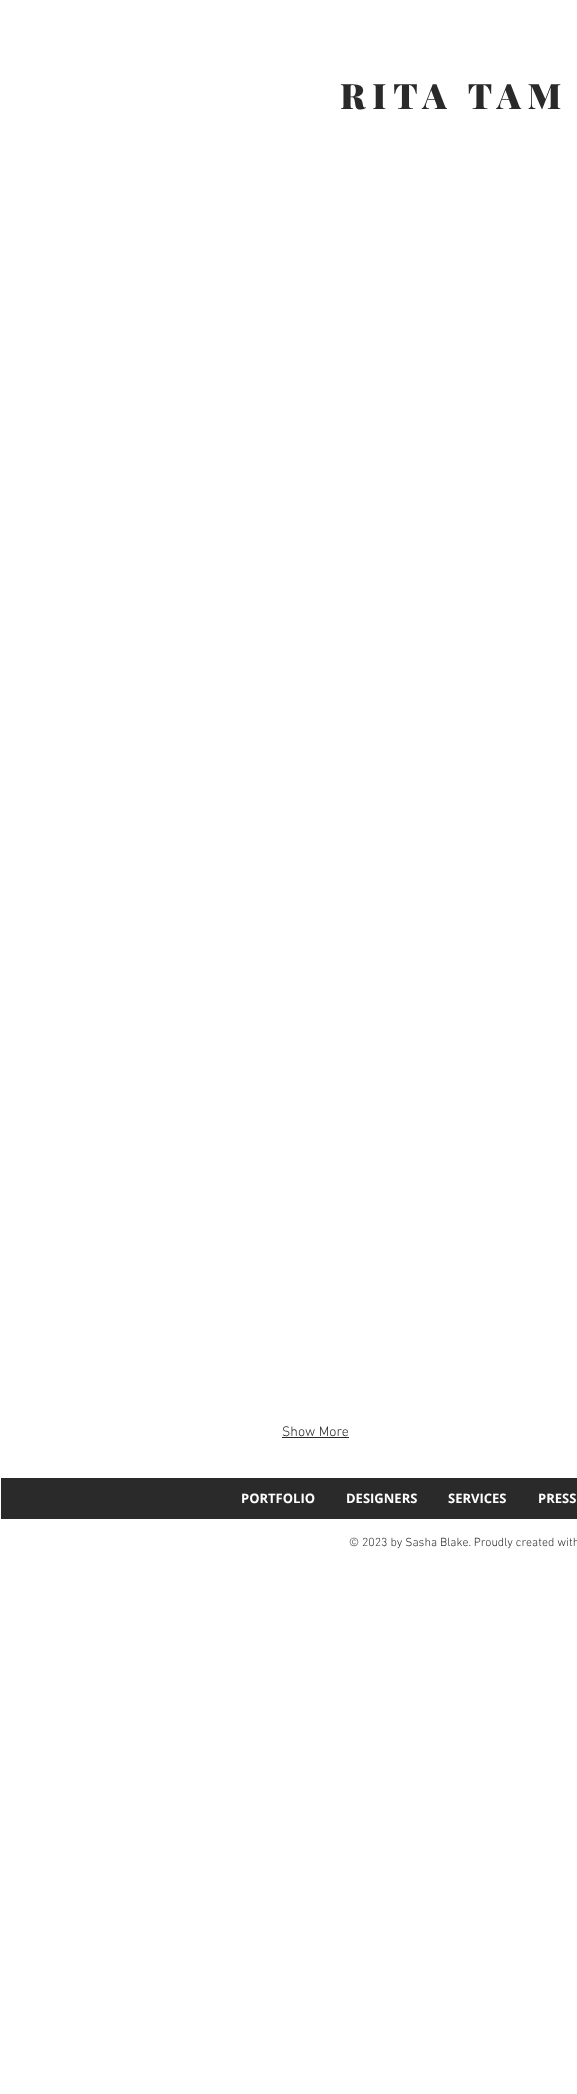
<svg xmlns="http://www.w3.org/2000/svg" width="577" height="2094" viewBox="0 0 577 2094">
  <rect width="100%" height="100%" fill="#ffffff"/>
  <text x="340" y="109" font-family="Playfair Display" font-size="35" font-weight="900" letter-spacing="7" fill="#2a2a2a">RITA TAM</text>
  <text x="282" y="1436" font-family="'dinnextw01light'" font-size="14" font-weight="300" fill="#2a2a2a">Show More</text>
  <rect x="282" y="1437" width="67" height="1" fill="#2a2a2a"/>
  <rect x="1" y="1478" width="576" height="41" fill="#2a2a2a"/>
  <text x="241" y="1503" font-family="Open Sans" font-size="13" font-weight="bold" fill="#ffffff">PORTFOLIO</text>
  <text x="346" y="1503" font-family="Open Sans" font-size="13" font-weight="bold" fill="#ffffff">DESIGNERS</text>
  <text x="448" y="1503" font-family="Open Sans" font-size="13" font-weight="bold" fill="#ffffff">SERVICES</text>
  <text x="538" y="1503" font-family="Open Sans" font-size="13" font-weight="bold" fill="#ffffff">PRESS</text>
  <text x="349" y="1546" font-family="'dinnextw01light'" font-size="12" font-weight="300" fill="#2a2a2a">© 2023 by Sasha Blake. Proudly created with</text>
</svg>
